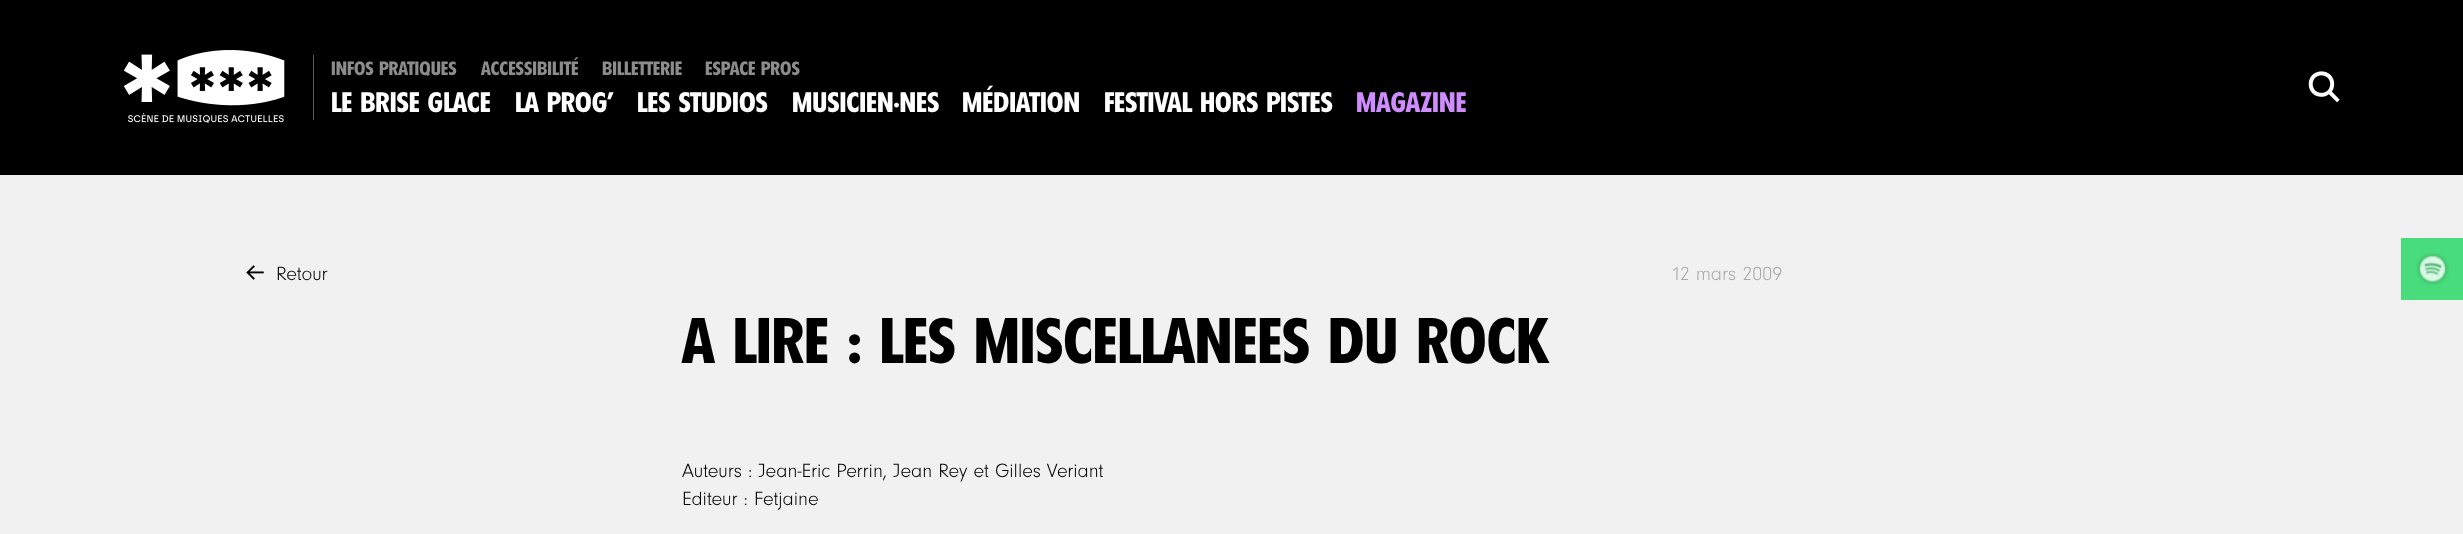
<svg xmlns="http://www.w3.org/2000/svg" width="2463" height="534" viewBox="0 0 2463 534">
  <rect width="100%" height="100%" fill="#000000"/>
  <image x="124" y="50" width="161" height="73" href="img1.png"/>
  <rect x="313" y="55" width="1" height="65" fill="#575a5b"/>
  <text x="331" y="75" font-family="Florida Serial" font-size="18.75" font-weight="800" fill="#8d8c8c">INFOS PRATIQUES</text>
  <text x="481" y="75" font-family="Florida Serial" font-size="18.75" font-weight="800" fill="#8d8c8c">ACCESSIBILITÉ</text>
  <text x="602" y="75" font-family="Florida Serial" font-size="18.75" font-weight="800" fill="#8d8c8c">BILLETTERIE</text>
  <text x="705" y="75" font-family="Florida Serial" font-size="18.75" font-weight="800" fill="#8d8c8c">ESPACE PROS</text>
  <text x="331" y="112" font-family="Florida Serial" font-size="27.5" font-weight="800" fill="#ffffff">LE BRISE GLACE</text>
  <text x="515" y="112" font-family="Florida Serial" font-size="27.5" font-weight="800" fill="#ffffff">LA PROG’</text>
  <text x="637" y="112" font-family="Florida Serial" font-size="27.5" font-weight="800" fill="#ffffff">LES STUDIOS</text>
  <text x="792" y="112" font-family="Florida Serial" font-size="27.5" font-weight="800" fill="#ffffff">MUSICIEN·NES</text>
  <text x="962" y="112" font-family="Florida Serial" font-size="27.5" font-weight="800" fill="#ffffff">MÉDIATION</text>
  <text x="1104" y="112" font-family="Florida Serial" font-size="27.5" font-weight="800" fill="#ffffff">FESTIVAL HORS PISTES</text>
  <text x="1356" y="112" font-family="Florida Serial" font-size="27.5" font-weight="800" fill="#cf8cfe">MAGAZINE</text>
  <image x="2308" y="71" width="32" height="32" href="img2.png"/>
  <rect x="0" y="175" width="2463" height="359" fill="#f1f1f1"/>
  <image x="246" y="265" width="18" height="15" href="img3.png"/>
  <text x="276" y="280" font-family="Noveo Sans" font-size="20" font-weight="300" fill="#000000">Retour</text>
  <text x="1671" y="280" font-family="Noveo Sans" font-size="20" font-weight="300" fill="#a9a9a9">12 mars 2009</text>
  <text x="682" y="363" font-family="Florida Serial" font-size="62.5" font-weight="800" fill="#000000">A LIRE : LES MISCELLANEES DU ROCK</text>
  <text x="682" y="477" font-family="Noveo Sans" font-size="20" font-weight="300" fill="#000000">Auteurs : Jean-Eric Perrin, Jean Rey et Gilles Veriant</text>
  <text x="682" y="505" font-family="Noveo Sans" font-size="20" font-weight="300" fill="#000000">Editeur : Fetjaine</text>
  <rect x="2401" y="238" width="62" height="62" fill="#48dc7d"/>
  <image x="2416" y="253" width="33" height="32" href="img4.png"/>
</svg>
